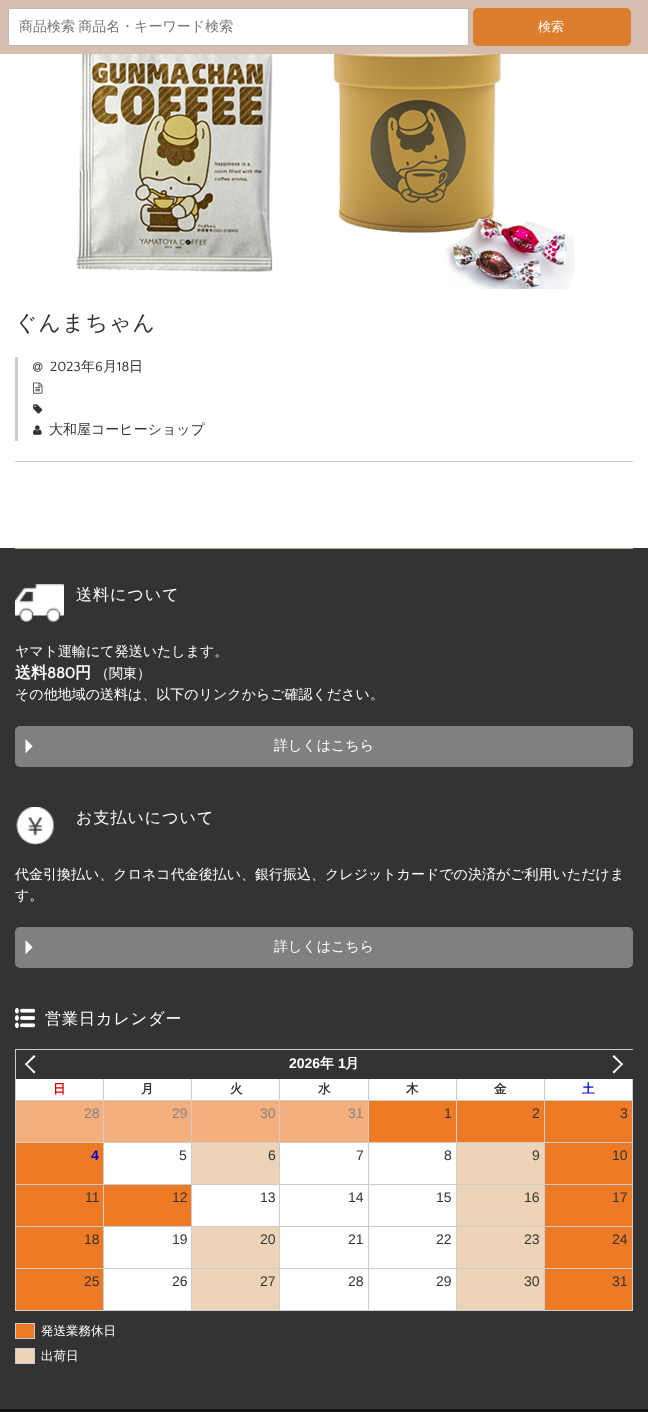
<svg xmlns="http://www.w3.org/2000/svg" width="648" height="1412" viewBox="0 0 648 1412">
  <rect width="100%" height="100%" fill="#ffffff"/>
  <rect x="0" y="0" width="648" height="54" fill="#d6beaf"/>
  <rect x="8.5" y="8.5" width="460" height="37" rx="1.5" fill="#ffffff" stroke="#bbbbbb"/>
  <text x="19" y="31" word-spacing="-1" font-family="WenQuanYi Zen Hei" font-size="14" font-weight="500" fill="#757575">商品検索 商品名・キーワード検索</text>
  <rect x="473" y="8" width="158" height="38" rx="5" fill="#dd7d2e"/>
  <text x="538" y="31" font-family="WenQuanYi Zen Hei" font-size="13" font-weight="500" fill="#ffffff">検索</text>
  <image x="33" y="54" width="542" height="235" href="img1.png"/>
  <text x="15" y="330" font-family="WenQuanYi Zen Hei" font-size="22" font-weight="500" letter-spacing="1" fill="#333333">ぐんまちゃん</text>
  <rect x="15" y="357" width="3" height="84" fill="#cccccc"/>
  <image x="33" y="362" width="10" height="10" href="img2.png"/>
  <text x="50" y="371" font-family="Quattrocento Sans" font-size="14" fill="#333333">2023</text>
  <text x="81" y="371" font-family="WenQuanYi Zen Hei" font-size="14" font-weight="500" fill="#333333">年</text>
  <text x="95" y="371" font-family="Quattrocento Sans" font-size="14" fill="#333333">6</text>
  <text x="103" y="371" font-family="WenQuanYi Zen Hei" font-size="14" font-weight="500" fill="#333333">月</text>
  <text x="117" y="371" font-family="Quattrocento Sans" font-size="14" fill="#333333">18</text>
  <text x="129" y="371" font-family="WenQuanYi Zen Hei" font-size="14" font-weight="500" fill="#333333">日</text>
  <image x="33" y="382" width="10" height="12" href="img3.png"/>
  <image x="33" y="404" width="10" height="10" href="img4.png"/>
  <image x="33" y="425" width="9" height="10" href="img5.png"/>
  <text x="49" y="434" font-family="WenQuanYi Zen Hei" font-size="14" font-weight="500" fill="#333333">大和屋コーヒーショップ</text>
  <rect x="15" y="461" width="618" height="1" fill="#cccccc"/>
  <rect x="0" y="548" width="648" height="861" fill="#333333"/>
  <rect x="15" y="548" width="618" height="1" fill="#cbae9c"/>
  <image x="15" y="584" width="49" height="38" href="img6.png"/>
  <text x="76" y="600" font-family="WenQuanYi Zen Hei" font-size="16" font-weight="500" letter-spacing="1" fill="#ffffff">送料について</text>
  <text x="15" y="656" font-family="WenQuanYi Zen Hei" font-size="14" font-weight="500" fill="#ffffff">ヤマト運輸にて発送いたします。</text>
  <text x="15" y="678" font-family="WenQuanYi Zen Hei" font-size="16" font-weight="bold" fill="#ffffff">送料</text>
  <text x="47" y="678" font-family="Quattrocento Sans" font-size="16" font-weight="bold" fill="#ffffff">880</text>
  <text x="75" y="678" font-family="WenQuanYi Zen Hei" font-size="16" font-weight="bold" fill="#ffffff">円</text>
  <text x="95" y="678" font-family="WenQuanYi Zen Hei" font-size="14" font-weight="500" fill="#ffffff">（関東）</text>
  <text x="15" y="699" font-family="WenQuanYi Zen Hei" font-size="14" font-weight="500" fill="#ffffff">その他地域の送料は、以下のリンクからご確認ください。</text>
  <rect x="15" y="726" width="618" height="41" rx="5" fill="#808080"/>
  <image x="25" y="739" width="8" height="14" href="img7.png"/>
  <text x="274" y="750" font-family="WenQuanYi Zen Hei" font-size="14" font-weight="500" fill="#ffffff">詳しくはこちら</text>
  <image x="16" y="807" width="38" height="38" href="img8.png"/>
  <text x="76" y="823" font-family="WenQuanYi Zen Hei" font-size="16" font-weight="500" letter-spacing="1" fill="#ffffff">お支払いについて</text>
  <text x="15" y="879" font-family="WenQuanYi Zen Hei" font-size="14" font-weight="500" fill="#ffffff">代金引換払い、クロネコ代金後払い、銀行振込、クレジットカードでの決済がご利用いただけま</text>
  <text x="15" y="900" font-family="WenQuanYi Zen Hei" font-size="14" font-weight="500" fill="#ffffff">す。</text>
  <rect x="15" y="927" width="618" height="41" rx="5" fill="#808080"/>
  <image x="25" y="940" width="8" height="14" href="img7.png"/>
  <text x="274" y="951" font-family="WenQuanYi Zen Hei" font-size="14" font-weight="500" fill="#ffffff">詳しくはこちら</text>
  <image x="15" y="1008" width="20" height="20" href="img9.png"/>
  <text x="45" y="1024" font-family="WenQuanYi Zen Hei" font-size="16" font-weight="500" letter-spacing="1" fill="#ffffff">営業日カレンダー</text>
  <rect x="15" y="1049" width="618" height="1" fill="#cccccc"/>
  <rect x="15" y="1310" width="618" height="1" fill="#cccccc"/>
  <rect x="15" y="1049" width="1" height="262" fill="#cccccc"/>
  <path d="M26 1063L35.5 1072L34 1073.5L25 1064Z" fill="#ffffff"/>
  <path d="M34 1055L35.5 1056.5L26 1065.5L25 1064Z" fill="#ffffff"/>
  <text x="289" y="1068" font-family="Liberation Sans" font-size="14" font-weight="bold" fill="#ffffff">2026</text>
  <text x="320" y="1068" font-family="WenQuanYi Zen Hei" font-size="14" font-weight="bold" fill="#ffffff">年</text>
  <text x="338" y="1068" font-family="Liberation Sans" font-size="14" font-weight="bold" fill="#ffffff">1</text>
  <text x="345" y="1068" font-family="WenQuanYi Zen Hei" font-size="14" font-weight="bold" fill="#ffffff">月</text>
  <path d="M614 1055L623 1064L622 1065.5L612.5 1056.5Z" fill="#ffffff"/>
  <path d="M622 1063L623 1064L614 1073.5L612.5 1072Z" fill="#ffffff"/>
  <rect x="16" y="1079" width="87" height="21" fill="#ffffff"/>
  <rect x="103" y="1079" width="1" height="21" fill="#cccccc"/>
  <text x="53" y="1093" font-family="WenQuanYi Zen Hei" font-size="12.5" font-weight="bold" fill="#dd0000">日</text>
  <rect x="104" y="1079" width="87" height="21" fill="#ffffff"/>
  <rect x="191" y="1079" width="1" height="21" fill="#cccccc"/>
  <text x="141" y="1093" font-family="WenQuanYi Zen Hei" font-size="12.5" font-weight="bold" fill="#333333">月</text>
  <rect x="192" y="1079" width="87" height="21" fill="#ffffff"/>
  <rect x="279" y="1079" width="1" height="21" fill="#cccccc"/>
  <text x="230" y="1093" font-family="WenQuanYi Zen Hei" font-size="12.5" font-weight="bold" fill="#333333">火</text>
  <rect x="280" y="1079" width="88" height="21" fill="#ffffff"/>
  <rect x="368" y="1079" width="1" height="21" fill="#cccccc"/>
  <text x="318" y="1093" font-family="WenQuanYi Zen Hei" font-size="12.5" font-weight="bold" fill="#333333">水</text>
  <rect x="369" y="1079" width="87" height="21" fill="#ffffff"/>
  <rect x="456" y="1079" width="1" height="21" fill="#cccccc"/>
  <text x="406" y="1093" font-family="WenQuanYi Zen Hei" font-size="12.5" font-weight="bold" fill="#333333">木</text>
  <rect x="457" y="1079" width="87" height="21" fill="#ffffff"/>
  <rect x="544" y="1079" width="1" height="21" fill="#cccccc"/>
  <text x="494" y="1093" font-family="WenQuanYi Zen Hei" font-size="12.5" font-weight="bold" fill="#333333">金</text>
  <rect x="545" y="1079" width="87" height="21" fill="#ffffff"/>
  <rect x="632" y="1079" width="1" height="21" fill="#cccccc"/>
  <text x="582" y="1093" font-family="WenQuanYi Zen Hei" font-size="12.5" font-weight="bold" fill="#0000dd">土</text>
  <rect x="16" y="1100" width="617" height="1" fill="#cccccc"/>
  <rect x="103" y="1100" width="1" height="42" fill="#cccccc"/>
  <rect x="16" y="1101" width="87" height="41" fill="#f5af7d"/>
  <text x="84" y="1118" font-family="Liberation Sans" font-size="14" fill="#858585">28</text>
  <rect x="191" y="1100" width="1" height="42" fill="#cccccc"/>
  <rect x="104" y="1101" width="87" height="41" fill="#f5af7d"/>
  <text x="172" y="1118" font-family="Liberation Sans" font-size="14" fill="#858585">29</text>
  <rect x="279" y="1100" width="1" height="42" fill="#cccccc"/>
  <rect x="192" y="1101" width="87" height="41" fill="#f5af7d"/>
  <text x="260" y="1118" font-family="Liberation Sans" font-size="14" fill="#858585">30</text>
  <rect x="368" y="1100" width="1" height="42" fill="#cccccc"/>
  <rect x="280" y="1101" width="88" height="41" fill="#f5af7d"/>
  <text x="348" y="1118" font-family="Liberation Sans" font-size="14" fill="#858585">31</text>
  <rect x="456" y="1100" width="1" height="42" fill="#cccccc"/>
  <rect x="369" y="1101" width="87" height="41" fill="#ef7a26"/>
  <text x="444" y="1118" font-family="Liberation Sans" font-size="14" fill="#333333">1</text>
  <rect x="544" y="1100" width="1" height="42" fill="#cccccc"/>
  <rect x="457" y="1101" width="87" height="41" fill="#ef7a26"/>
  <text x="532" y="1118" font-family="Liberation Sans" font-size="14" fill="#333333">2</text>
  <rect x="632" y="1100" width="1" height="42" fill="#cccccc"/>
  <rect x="545" y="1101" width="87" height="41" fill="#ef7a26"/>
  <text x="620" y="1118" font-family="Liberation Sans" font-size="14" fill="#333333">3</text>
  <rect x="104" y="1143" width="352" height="41" fill="#ffffff"/>
  <rect x="16" y="1142" width="617" height="1" fill="#cccccc"/>
  <rect x="103" y="1142" width="1" height="42" fill="#cccccc"/>
  <rect x="16" y="1143" width="87" height="41" fill="#ef7a26"/>
  <text x="91" y="1160" font-family="Liberation Sans" font-size="14" font-weight="bold" fill="#0000dd">4</text>
  <rect x="191" y="1142" width="1" height="42" fill="#cccccc"/>
  <text x="179" y="1160" font-family="Liberation Sans" font-size="14" fill="#333333">5</text>
  <rect x="279" y="1142" width="1" height="42" fill="#cccccc"/>
  <rect x="192" y="1143" width="87" height="41" fill="#edd4b6"/>
  <text x="268" y="1160" font-family="Liberation Sans" font-size="14" fill="#333333">6</text>
  <rect x="368" y="1142" width="1" height="42" fill="#cccccc"/>
  <text x="356" y="1160" font-family="Liberation Sans" font-size="14" fill="#333333">7</text>
  <rect x="456" y="1142" width="1" height="42" fill="#cccccc"/>
  <text x="444" y="1160" font-family="Liberation Sans" font-size="14" fill="#333333">8</text>
  <rect x="544" y="1142" width="1" height="42" fill="#cccccc"/>
  <rect x="457" y="1143" width="87" height="41" fill="#edd4b6"/>
  <text x="532" y="1160" font-family="Liberation Sans" font-size="14" fill="#333333">9</text>
  <rect x="632" y="1142" width="1" height="42" fill="#cccccc"/>
  <rect x="545" y="1143" width="87" height="41" fill="#ef7a26"/>
  <text x="612" y="1160" font-family="Liberation Sans" font-size="14" fill="#333333">10</text>
  <rect x="192" y="1185" width="264" height="41" fill="#ffffff"/>
  <rect x="16" y="1184" width="617" height="1" fill="#cccccc"/>
  <rect x="103" y="1184" width="1" height="42" fill="#cccccc"/>
  <rect x="16" y="1185" width="87" height="41" fill="#ef7a26"/>
  <text x="85" y="1202" font-family="Liberation Sans" font-size="14" fill="#333333">11</text>
  <rect x="191" y="1184" width="1" height="42" fill="#cccccc"/>
  <rect x="104" y="1185" width="87" height="41" fill="#ef7a26"/>
  <text x="172" y="1202" font-family="Liberation Sans" font-size="14" fill="#333333">12</text>
  <rect x="279" y="1184" width="1" height="42" fill="#cccccc"/>
  <text x="260" y="1202" font-family="Liberation Sans" font-size="14" fill="#333333">13</text>
  <rect x="368" y="1184" width="1" height="42" fill="#cccccc"/>
  <text x="348" y="1202" font-family="Liberation Sans" font-size="14" fill="#333333">14</text>
  <rect x="456" y="1184" width="1" height="42" fill="#cccccc"/>
  <text x="436" y="1202" font-family="Liberation Sans" font-size="14" fill="#333333">15</text>
  <rect x="544" y="1184" width="1" height="42" fill="#cccccc"/>
  <rect x="457" y="1185" width="87" height="41" fill="#edd4b6"/>
  <text x="524" y="1202" font-family="Liberation Sans" font-size="14" fill="#333333">16</text>
  <rect x="632" y="1184" width="1" height="42" fill="#cccccc"/>
  <rect x="545" y="1185" width="87" height="41" fill="#ef7a26"/>
  <text x="612" y="1202" font-family="Liberation Sans" font-size="14" fill="#333333">17</text>
  <rect x="104" y="1227" width="352" height="41" fill="#ffffff"/>
  <rect x="16" y="1226" width="617" height="1" fill="#cccccc"/>
  <rect x="103" y="1226" width="1" height="42" fill="#cccccc"/>
  <rect x="16" y="1227" width="87" height="41" fill="#ef7a26"/>
  <text x="84" y="1244" font-family="Liberation Sans" font-size="14" fill="#333333">18</text>
  <rect x="191" y="1226" width="1" height="42" fill="#cccccc"/>
  <text x="172" y="1244" font-family="Liberation Sans" font-size="14" fill="#333333">19</text>
  <rect x="279" y="1226" width="1" height="42" fill="#cccccc"/>
  <rect x="192" y="1227" width="87" height="41" fill="#edd4b6"/>
  <text x="260" y="1244" font-family="Liberation Sans" font-size="14" fill="#333333">20</text>
  <rect x="368" y="1226" width="1" height="42" fill="#cccccc"/>
  <text x="348" y="1244" font-family="Liberation Sans" font-size="14" fill="#333333">21</text>
  <rect x="456" y="1226" width="1" height="42" fill="#cccccc"/>
  <text x="436" y="1244" font-family="Liberation Sans" font-size="14" fill="#333333">22</text>
  <rect x="544" y="1226" width="1" height="42" fill="#cccccc"/>
  <rect x="457" y="1227" width="87" height="41" fill="#edd4b6"/>
  <text x="524" y="1244" font-family="Liberation Sans" font-size="14" fill="#333333">23</text>
  <rect x="632" y="1226" width="1" height="42" fill="#cccccc"/>
  <rect x="545" y="1227" width="87" height="41" fill="#ef7a26"/>
  <text x="612" y="1244" font-family="Liberation Sans" font-size="14" fill="#333333">24</text>
  <rect x="104" y="1269" width="352" height="41" fill="#ffffff"/>
  <rect x="16" y="1268" width="617" height="1" fill="#cccccc"/>
  <rect x="103" y="1268" width="1" height="42" fill="#cccccc"/>
  <rect x="16" y="1269" width="87" height="41" fill="#ef7a26"/>
  <text x="84" y="1286" font-family="Liberation Sans" font-size="14" fill="#333333">25</text>
  <rect x="191" y="1268" width="1" height="42" fill="#cccccc"/>
  <text x="172" y="1286" font-family="Liberation Sans" font-size="14" fill="#333333">26</text>
  <rect x="279" y="1268" width="1" height="42" fill="#cccccc"/>
  <rect x="192" y="1269" width="87" height="41" fill="#edd4b6"/>
  <text x="260" y="1286" font-family="Liberation Sans" font-size="14" fill="#333333">27</text>
  <rect x="368" y="1268" width="1" height="42" fill="#cccccc"/>
  <text x="348" y="1286" font-family="Liberation Sans" font-size="14" fill="#333333">28</text>
  <rect x="456" y="1268" width="1" height="42" fill="#cccccc"/>
  <text x="436" y="1286" font-family="Liberation Sans" font-size="14" fill="#333333">29</text>
  <rect x="544" y="1268" width="1" height="42" fill="#cccccc"/>
  <rect x="457" y="1269" width="87" height="41" fill="#edd4b6"/>
  <text x="524" y="1286" font-family="Liberation Sans" font-size="14" fill="#333333">30</text>
  <rect x="632" y="1268" width="1" height="42" fill="#cccccc"/>
  <rect x="545" y="1269" width="87" height="41" fill="#ef7a26"/>
  <text x="612" y="1286" font-family="Liberation Sans" font-size="14" fill="#333333">31</text>
  <rect x="15.5" y="1323.5" width="19" height="15" fill="#ef7a26" stroke="#cccccc"/>
  <text x="41" y="1335" font-family="WenQuanYi Zen Hei" font-size="12.5" font-weight="500" fill="#ffffff">発送業務休日</text>
  <rect x="15.5" y="1348.5" width="19" height="15" fill="#edd4b6" stroke="#cccccc"/>
  <text x="41" y="1360" font-family="WenQuanYi Zen Hei" font-size="12.5" font-weight="500" fill="#ffffff">出荷日</text>
  <rect x="0" y="1409" width="648" height="3" fill="#131313"/>
</svg>
